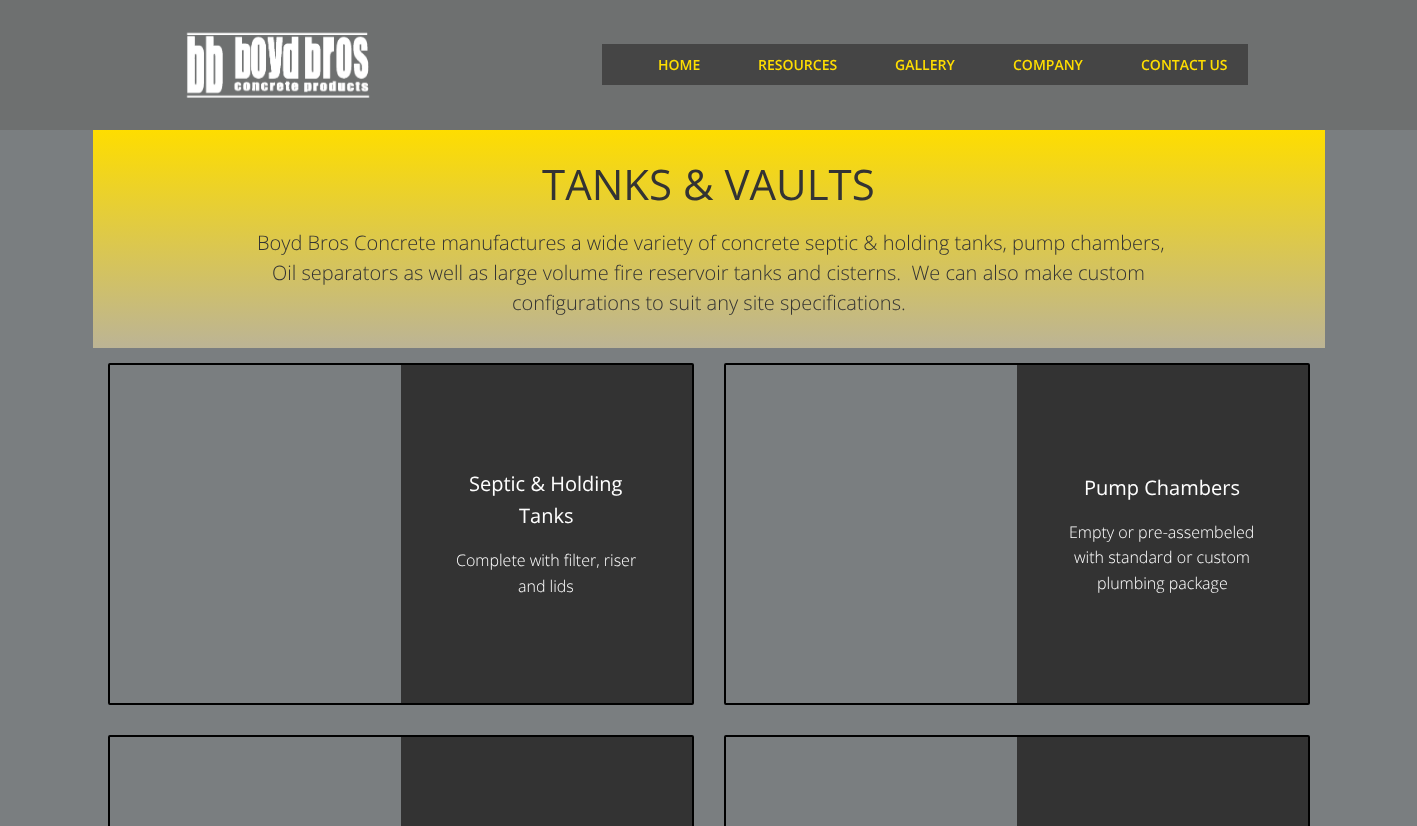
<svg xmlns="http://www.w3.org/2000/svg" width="1417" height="826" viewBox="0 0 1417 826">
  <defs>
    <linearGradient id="g1" gradientUnits="userSpaceOnUse" x1="709" y1="348" x2="709" y2="130"><stop offset="0" stop-color="#bcb495"/><stop offset="1" stop-color="#fedd00"/></linearGradient>
  </defs>
  <rect width="100%" height="100%" fill="#7a7e80"/>
  <rect x="0" y="0" width="1417" height="130" fill="#6e7070"/>
  <image x="186" y="32" width="184" height="66" href="img1.png"/>
  <rect x="602" y="44" width="646" height="41" fill="#454545"/>
  <text x="658" y="70" font-family="Open Sans" font-size="14" font-weight="600" fill="#fedd00">HOME</text>
  <text x="758" y="70" font-family="Open Sans" font-size="14" font-weight="600" fill="#fedd00">RESOURCES</text>
  <text x="895" y="70" font-family="Open Sans" font-size="14" font-weight="600" fill="#fedd00">GALLERY</text>
  <text x="1013" y="70" font-family="Open Sans" font-size="14" font-weight="600" fill="#fedd00">COMPANY</text>
  <text x="1141" y="70" font-family="Open Sans" font-size="14" font-weight="600" fill="#fedd00">CONTACT US</text>
  <rect x="93" y="130" width="1232" height="218" fill="url(#g1)"/>
  <text x="542" y="200" font-family="Open Sans" font-size="42" fill="#333333">TANKS &amp; VAULTS</text>
  <text x="257" y="250" font-family="Open Sans" font-size="20" font-weight="300" fill="#333333">Boyd Bros Concrete manufactures a wide variety of concrete septic &amp; holding tanks, pump chambers,</text>
  <text x="272" y="280" font-family="Open Sans" font-size="20" font-weight="300" fill="#333333" xml:space="preserve">Oil separators as well as large volume fire reservoir tanks and cisterns.  We can also make custom</text>
  <text x="512" y="310" font-family="Open Sans" font-size="20" font-weight="300" fill="#333333">configurations to suit any site specifications.</text>
  <rect x="109" y="364" width="584" height="340" rx="1" fill="none" stroke="#000000" stroke-width="2"/>
  <rect x="401" y="365" width="291" height="338" fill="#333333"/>
  <text x="469" y="491" font-family="Open Sans" font-size="20" fill="#ffffff">Septic &amp; Holding</text>
  <text x="519" y="523" font-family="Open Sans" font-size="20" fill="#ffffff">Tanks</text>
  <text x="456" y="566" font-family="Open Sans" font-size="16" font-weight="300" fill="#ffffff">Complete with filter, riser</text>
  <text x="518" y="592" font-family="Open Sans" font-size="16" font-weight="300" fill="#ffffff">and lids</text>
  <rect x="725" y="364" width="584" height="340" rx="1" fill="none" stroke="#000000" stroke-width="2"/>
  <rect x="1017" y="365" width="291" height="338" fill="#333333"/>
  <text x="1084" y="495" font-family="Open Sans" font-size="20" fill="#ffffff">Pump Chambers</text>
  <text x="1069" y="538" font-family="Open Sans" font-size="16" font-weight="300" fill="#ffffff">Empty or pre-assembeled</text>
  <text x="1074" y="563" font-family="Open Sans" font-size="16" font-weight="300" fill="#ffffff">with standard or custom</text>
  <text x="1097" y="589" font-family="Open Sans" font-size="16" font-weight="300" fill="#ffffff">plumbing package</text>
  <rect x="109" y="736" width="584" height="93" rx="1" fill="none" stroke="#000000" stroke-width="2"/>
  <rect x="401" y="737" width="291" height="89" fill="#333333"/>
  <rect x="725" y="736" width="584" height="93" rx="1" fill="none" stroke="#000000" stroke-width="2"/>
  <rect x="1017" y="737" width="291" height="89" fill="#333333"/>
</svg>
